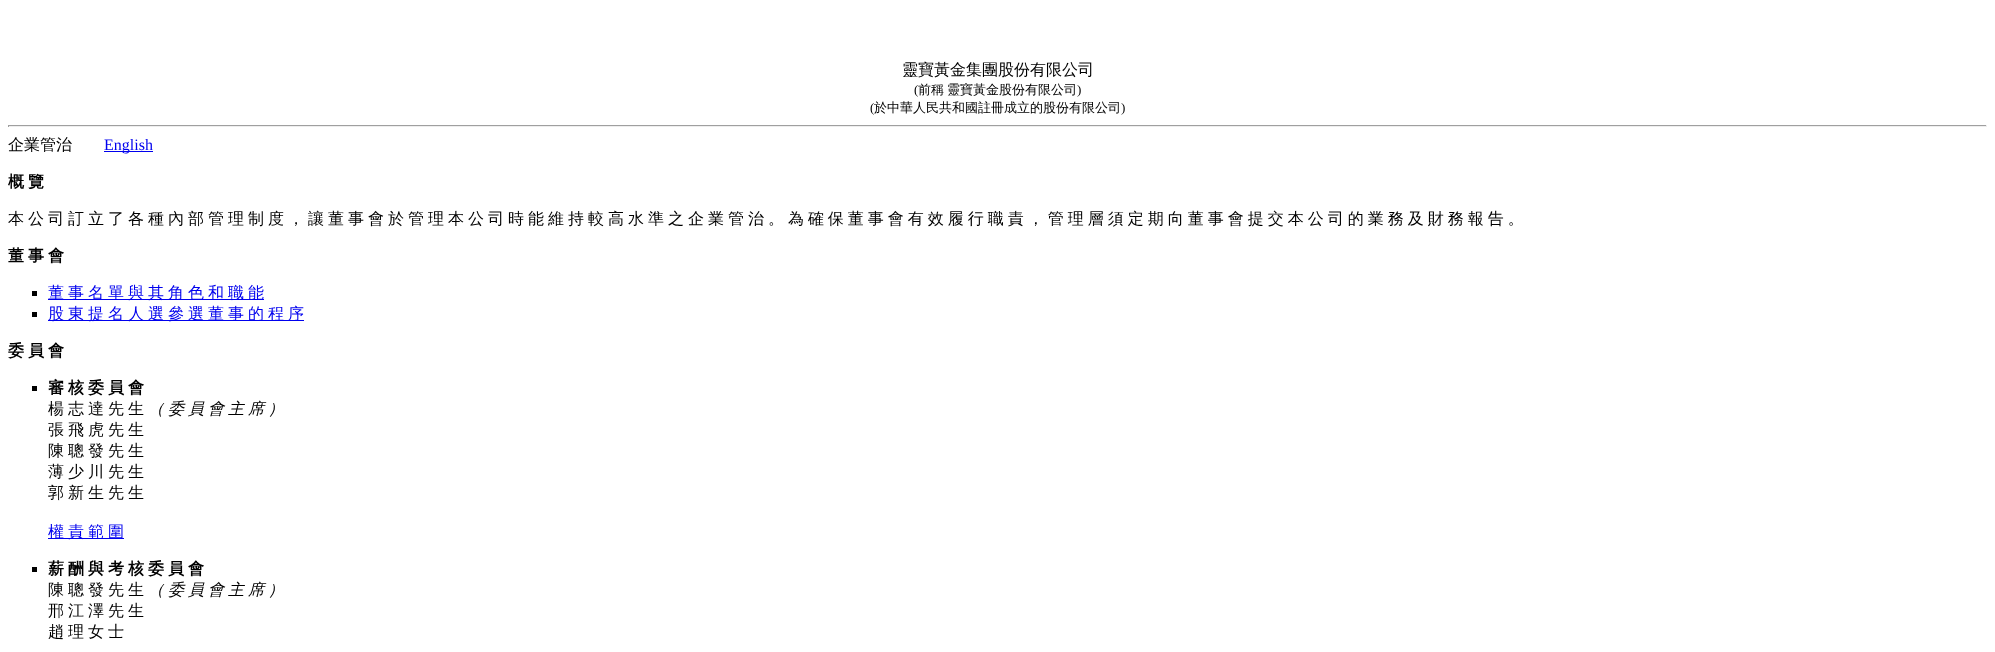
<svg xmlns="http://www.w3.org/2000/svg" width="1995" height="652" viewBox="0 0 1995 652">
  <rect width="100%" height="100%" fill="#ffffff"/>
  <text x="902" y="75" font-family="WenQuanYi Zen Hei" font-size="16" font-weight="500" fill="#000000">靈寶黃金集團股份有限公司</text>
  <text x="914" y="94" font-family="Liberation Serif" font-size="13" fill="#000000">(</text>
  <text x="918" y="94" word-spacing="-1" font-family="WenQuanYi Zen Hei" font-size="13" font-weight="500" fill="#000000">前稱 靈寶黃金股份有限公司</text>
  <text x="1077" y="94" font-family="Liberation Serif" font-size="13" fill="#000000">)</text>
  <text x="870" y="112" font-family="Liberation Serif" font-size="13" fill="#000000">(</text>
  <text x="874" y="112" font-family="WenQuanYi Zen Hei" font-size="13" font-weight="500" fill="#000000">於中華人民共和國註冊成立的股份有限公司</text>
  <text x="1121" y="112" font-family="Liberation Serif" font-size="13" fill="#000000">)</text>
  <rect x="8" y="125" width="1979" height="1" fill="#9f9f9f"/>
  <rect x="1986" y="125" width="1" height="2" fill="#eeeeee"/>
  <rect x="8" y="126" width="1979" height="1" fill="#eeeeee"/>
  <rect x="8" y="125" width="1" height="2" fill="#9f9f9f"/>
  <text x="8" y="150" font-family="WenQuanYi Zen Hei" font-size="16" font-weight="500" fill="#000000">企業管治</text>
  <rect x="104" y="151" width="49" height="1" fill="#0000ee"/>
  <text x="104" y="150" font-family="Liberation Serif" font-size="16" fill="#0000ee">English</text>
  <text x="8" y="187" word-spacing="-0.8" font-family="WenQuanYi Zen Hei" font-size="16" font-weight="bold" fill="#000000">概 覽</text>
  <text x="8" y="224" word-spacing="-0.8" font-family="WenQuanYi Zen Hei" font-size="16" font-weight="500" fill="#000000">本 公 司 訂 立 了 各 種 內 部 管 理 制 度 ， 讓 董 事 會 於 管 理 本 公 司 時 能 維 持 較 高 水 準 之 企 業 管 治 。 為 確 保 董 事 會 有 效 履 行 職 責 ， 管 理 層 須 定 期 向 董 事 會 提 交 本 公 司 的 業 務 及 財 務 報 告 。</text>
  <text x="8" y="261" word-spacing="-0.8" font-family="WenQuanYi Zen Hei" font-size="16" font-weight="bold" fill="#000000">董 事 會</text>
  <rect x="32" y="291" width="5" height="5" fill="#000000"/>
  <rect x="48" y="299" width="216" height="1" fill="#0000ee"/>
  <text x="48" y="298" word-spacing="-0.8" font-family="WenQuanYi Zen Hei" font-size="16" font-weight="500" fill="#0000ee">董 事 名 單 與 其 角 色 和 職 能</text>
  <rect x="32" y="312" width="5" height="5" fill="#000000"/>
  <rect x="48" y="320" width="256" height="1" fill="#0000ee"/>
  <text x="48" y="319" word-spacing="-0.8" font-family="WenQuanYi Zen Hei" font-size="16" font-weight="500" fill="#0000ee">股 東 提 名 人 選 參 選 董 事 的 程 序</text>
  <text x="8" y="356" word-spacing="-0.8" font-family="WenQuanYi Zen Hei" font-size="16" font-weight="bold" fill="#000000">委 員 會</text>
  <rect x="32" y="386" width="5" height="5" fill="#000000"/>
  <text x="48" y="393" word-spacing="-0.8" font-family="WenQuanYi Zen Hei" font-size="16" font-weight="bold" fill="#000000">審 核 委 員 會</text>
  <text x="48" y="414" word-spacing="-0.8" font-family="WenQuanYi Zen Hei" font-size="16" font-weight="500" fill="#000000">楊 志 達 先 生</text>
  <text x="148" y="414" word-spacing="-0.8" font-family="WenQuanYi Zen Hei" font-size="16" font-weight="500" font-style="italic" fill="#000000">（ 委 員 會 主 席 ）</text>
  <text x="48" y="435" word-spacing="-0.8" font-family="WenQuanYi Zen Hei" font-size="16" font-weight="500" fill="#000000">張 飛 虎 先 生</text>
  <text x="48" y="456" word-spacing="-0.8" font-family="WenQuanYi Zen Hei" font-size="16" font-weight="500" fill="#000000">陳 聰 發 先 生</text>
  <text x="48" y="477" word-spacing="-0.8" font-family="WenQuanYi Zen Hei" font-size="16" font-weight="500" fill="#000000">薄 少 川 先 生</text>
  <text x="48" y="498" word-spacing="-0.8" font-family="WenQuanYi Zen Hei" font-size="16" font-weight="500" fill="#000000">郭 新 生 先 生</text>
  <rect x="48" y="538" width="76" height="1" fill="#0000ee"/>
  <text x="48" y="537" word-spacing="-0.8" font-family="WenQuanYi Zen Hei" font-size="16" font-weight="500" fill="#0000ee">權 責 範 圍</text>
  <rect x="32" y="567" width="5" height="5" fill="#000000"/>
  <text x="48" y="574" word-spacing="-0.8" font-family="WenQuanYi Zen Hei" font-size="16" font-weight="bold" fill="#000000">薪 酬 與 考 核 委 員 會</text>
  <text x="48" y="595" word-spacing="-0.8" font-family="WenQuanYi Zen Hei" font-size="16" font-weight="500" fill="#000000">陳 聰 發 先 生</text>
  <text x="148" y="595" word-spacing="-0.8" font-family="WenQuanYi Zen Hei" font-size="16" font-weight="500" font-style="italic" fill="#000000">（ 委 員 會 主 席 ）</text>
  <text x="48" y="616" word-spacing="-0.8" font-family="WenQuanYi Zen Hei" font-size="16" font-weight="500" fill="#000000">邢 江 澤 先 生</text>
  <text x="48" y="637" word-spacing="-0.8" font-family="WenQuanYi Zen Hei" font-size="16" font-weight="500" fill="#000000">趙 理 女 士</text>
</svg>
